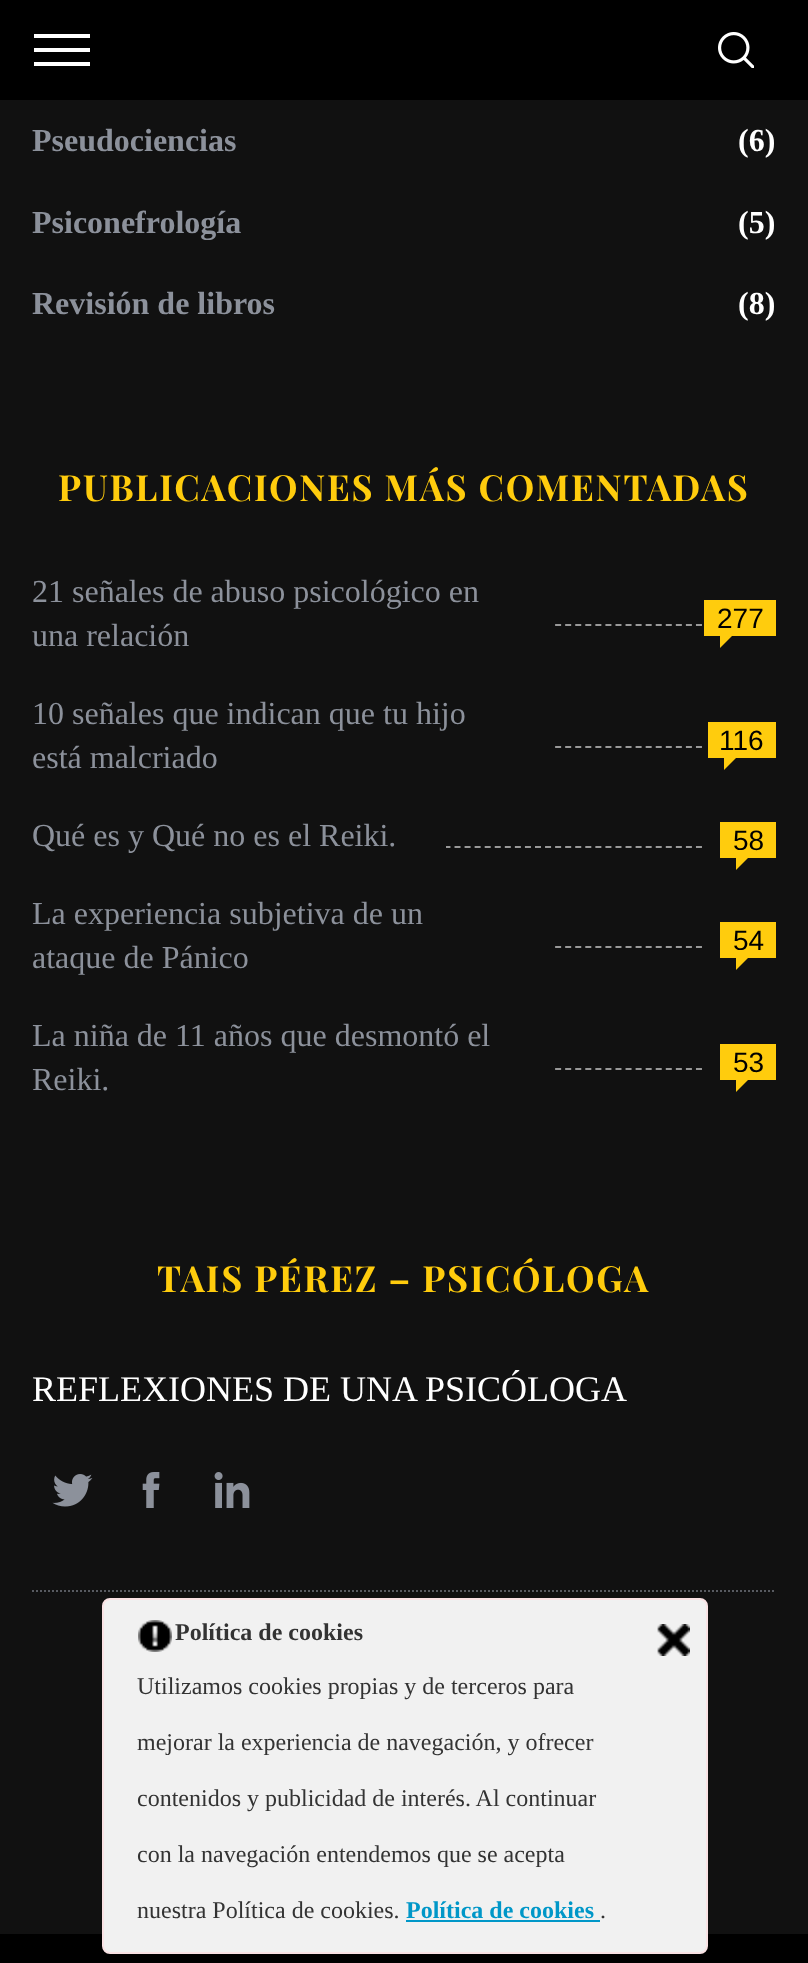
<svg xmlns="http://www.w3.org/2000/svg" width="808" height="1963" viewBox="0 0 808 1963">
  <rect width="100%" height="100%" fill="#111111"/>
  <rect x="0" y="0" width="808" height="100" fill="#000000"/>
  <rect x="34" y="48" width="56" height="4" fill="#ffffff"/>
  <rect x="34" y="34" width="56" height="4" fill="#ffffff"/>
  <rect x="34" y="62" width="56" height="4" fill="#ffffff"/>
  <image x="718" y="32" width="36" height="36" href="img1.png"/>
  <text x="32" y="151" font-family="Liberation Serif" font-size="32" font-weight="bold" fill="#8c919b">Pseudociencias</text>
  <text x="738" y="151" font-family="Liberation Serif" font-size="32" font-weight="bold" fill="#ffffff">(6)</text>
  <text x="32" y="233" font-family="Liberation Serif" font-size="32" font-weight="bold" fill="#8c919b">Psiconefrología</text>
  <text x="738" y="233" font-family="Liberation Serif" font-size="32" font-weight="bold" fill="#ffffff">(5)</text>
  <text x="32" y="314" font-family="Liberation Serif" font-size="32" font-weight="bold" fill="#8c919b">Revisión de libros</text>
  <text x="738" y="314" font-family="Liberation Serif" font-size="32" font-weight="bold" fill="#ffffff">(8)</text>
  <text x="58" y="501" font-family="Playfair Display" font-size="36" font-weight="bold" letter-spacing="1.8" fill="#ffcc0d">PUBLICACIONES MÁS COMENTADAS</text>
  <path d="M32 625H702" fill="none" stroke="#999999" stroke-width="2" stroke-dasharray="6 4.06"/>
  <rect x="32" y="624" width="520" height="2" fill="#111111"/>
  <text x="32" y="602" font-family="Liberation Serif" font-size="32" fill="#8c919b">21 señales de abuso psicológico en</text>
  <text x="32" y="646" font-family="Liberation Serif" font-size="32" fill="#8c919b">una relación</text>
  <rect x="704" y="600" width="72" height="36" fill="#ffcc0d"/>
  <text x="717" y="628" font-family="Liberation Sans" font-size="28" fill="#000000">277</text>
  <path d="M720 628H740L720 648Z" fill="#ffcc0d"/>
  <path d="M32 747H702" fill="none" stroke="#999999" stroke-width="2" stroke-dasharray="6 4.06"/>
  <rect x="32" y="746" width="520" height="2" fill="#111111"/>
  <text x="32" y="724" font-family="Liberation Serif" font-size="32" fill="#8c919b">10 señales que indican que tu hijo</text>
  <text x="32" y="768" font-family="Liberation Serif" font-size="32" fill="#8c919b">está malcriado</text>
  <rect x="708" y="722" width="68" height="36" fill="#ffcc0d"/>
  <text x="719" y="750" font-family="Liberation Sans" font-size="28" fill="#000000">116</text>
  <path d="M724 750H744L724 770Z" fill="#ffcc0d"/>
  <path d="M32 847H702" fill="none" stroke="#999999" stroke-width="2" stroke-dasharray="6 4.06"/>
  <rect x="32" y="846" width="414" height="2" fill="#111111"/>
  <text x="32" y="846" font-family="Liberation Serif" font-size="32" fill="#8c919b">Qué es y Qué no es el Reiki.</text>
  <rect x="720" y="822" width="56" height="36" fill="#ffcc0d"/>
  <text x="733" y="850" font-family="Liberation Sans" font-size="28" fill="#000000">58</text>
  <path d="M736 850H756L736 870Z" fill="#ffcc0d"/>
  <path d="M32 947H702" fill="none" stroke="#999999" stroke-width="2" stroke-dasharray="6 4.06"/>
  <rect x="32" y="946" width="520" height="2" fill="#111111"/>
  <text x="32" y="924" font-family="Liberation Serif" font-size="32" fill="#8c919b">La experiencia subjetiva de un</text>
  <text x="32" y="968" font-family="Liberation Serif" font-size="32" fill="#8c919b">ataque de Pánico</text>
  <rect x="720" y="922" width="56" height="36" fill="#ffcc0d"/>
  <text x="733" y="950" font-family="Liberation Sans" font-size="28" fill="#000000">54</text>
  <path d="M736 950H756L736 970Z" fill="#ffcc0d"/>
  <path d="M32 1069H702" fill="none" stroke="#999999" stroke-width="2" stroke-dasharray="6 4.06"/>
  <rect x="32" y="1068" width="520" height="2" fill="#111111"/>
  <text x="32" y="1046" font-family="Liberation Serif" font-size="32" fill="#8c919b">La niña de 11 años que desmontó el</text>
  <text x="32" y="1090" font-family="Liberation Serif" font-size="32" fill="#8c919b">Reiki.</text>
  <rect x="720" y="1044" width="56" height="36" fill="#ffcc0d"/>
  <text x="733" y="1072" font-family="Liberation Sans" font-size="28" fill="#000000">53</text>
  <path d="M736 1072H756L736 1092Z" fill="#ffcc0d"/>
  <path d="M32 1591H776" fill="none" stroke="#585b61" stroke-width="2" stroke-dasharray="2 2"/>
  <text x="157" y="1292" font-family="Playfair Display" font-size="36" font-weight="bold" letter-spacing="1.8" fill="#ffcc0d">TAIS PÉREZ – PSICÓLOGA</text>
  <text x="32" y="1401" font-family="Liberation Serif" font-size="36" fill="#ffffff">REFLEXIONES DE UNA PSICÓLOGA</text>
  <image x="52" y="1474" width="41" height="33" href="img2.png"/>
  <image x="142" y="1472" width="18" height="36" href="img3.png"/>
  <image x="214" y="1472" width="36" height="36" href="img4.png"/>
  <rect x="0" y="1934" width="808" height="29" fill="#000000"/>
  <rect x="103" y="1599" width="604" height="354" rx="7" fill="#f1f1f1" stroke="#fae3e5" stroke-width="2"/>
  <image x="138" y="1620" width="34" height="32" href="img5.png"/>
  <text x="175" y="1640" font-family="Liberation Serif" font-size="24" font-weight="bold" fill="#333333">Política de cookies</text>
  <image x="657" y="1624" width="33" height="32" href="img6.png"/>
  <text x="137" y="1694" font-family="Liberation Serif" font-size="24" fill="#333333">Utilizamos cookies propias y de terceros para</text>
  <text x="137" y="1750" font-family="Liberation Serif" font-size="24" fill="#333333">mejorar la experiencia de navegación, y ofrecer</text>
  <text x="137" y="1806" font-family="Liberation Serif" font-size="24" fill="#333333">contenidos y publicidad de interés. Al continuar</text>
  <text x="137" y="1862" font-family="Liberation Serif" font-size="24" fill="#333333">con la navegación entendemos que se acepta</text>
  <text x="137" y="1918" font-family="Liberation Serif" font-size="24" fill="#333333">nuestra Política de cookies.</text>
  <text x="406" y="1918" font-family="Liberation Serif" font-size="24" font-weight="bold" fill="#0097c8">Política de cookies</text>
  <rect x="406" y="1920" width="194" height="2" fill="#0097c8"/>
  <text x="600" y="1918" font-family="Liberation Serif" font-size="24" fill="#333333">.</text>
</svg>
